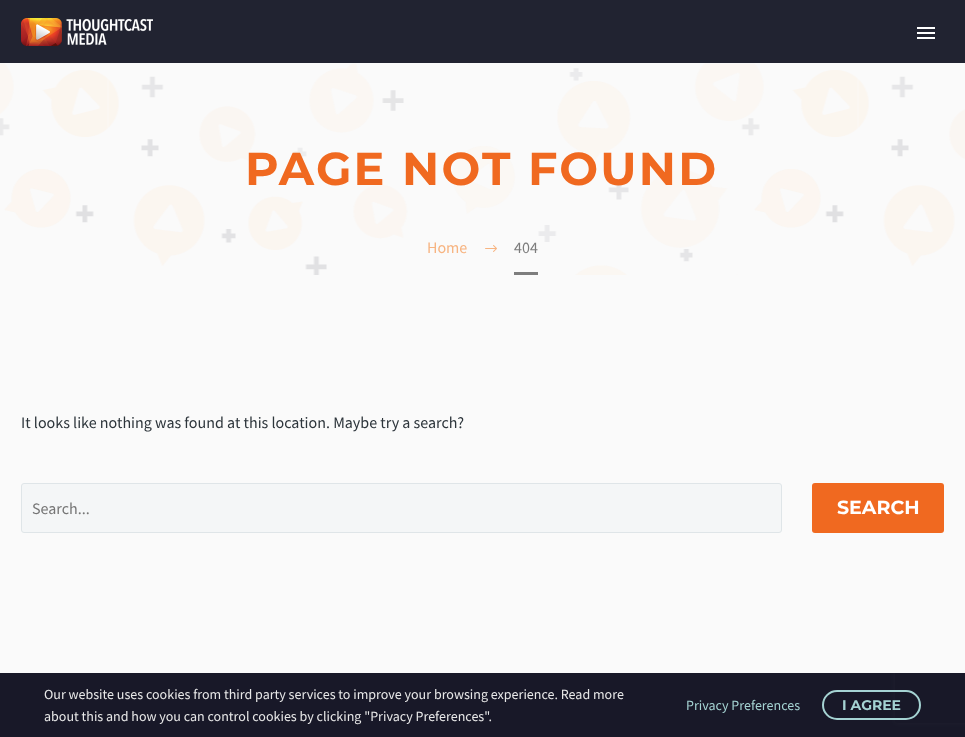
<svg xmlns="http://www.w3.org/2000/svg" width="965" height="737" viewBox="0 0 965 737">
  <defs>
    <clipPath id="clip1"><path d="M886 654H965V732H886ZM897 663H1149C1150 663 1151 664 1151 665V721C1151 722 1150 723 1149 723H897C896 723 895 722 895 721V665C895 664 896 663 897 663Z" clip-rule="evenodd"/></clipPath>
    <filter id="blur1" x="-50%" y="-200%" width="200%" height="500%"><feGaussianBlur stdDeviation="2.5"/></filter>
  </defs>
  <rect width="100%" height="100%" fill="#212331"/>
  <image x="21" y="18" width="132" height="28" href="img1.png"/>
  <rect x="917" y="27" width="18" height="2" fill="#ffffff"/>
  <rect x="917" y="32" width="18" height="2" fill="#ffffff"/>
  <rect x="917" y="37" width="18" height="2" fill="#ffffff"/>
  <g clip-path="url(#clip1)">
    <rect x="895" y="663" width="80" height="60" rx="2" fill="#808080" filter="url(#blur1)"/>
  </g>
  <rect x="0" y="63" width="965" height="610" fill="#fafafa"/>
  <image x="0" y="63" width="965" height="212" href="img2.png"/>
  <text x="245" y="185" font-family="Montserrat" font-size="46" font-weight="bold" letter-spacing="2.25" fill="#f06920">PAGE NOT FOUND</text>
  <text x="427" y="253" font-family="Source Sans Pro" font-size="16" fill="#f7b481">Home</text>
  <image x="485" y="245" width="12" height="7" href="img3.png"/>
  <rect x="514" y="272" width="24" height="3" fill="#7d7d7d"/>
  <text x="514" y="253" font-family="Source Sans Pro" font-size="16" fill="#7d7d7d">404</text>
  <text x="21" y="428" font-family="Source Sans Pro" font-size="16" fill="#2d353b">It looks like nothing was found at this location. Maybe try a search?</text>
  <rect x="21.5" y="483.5" width="760" height="49" rx="2.5" fill="#f4f6f7" stroke="#dfe5e8"/>
  <text x="32" y="514" font-family="Source Sans Pro" font-size="16" fill="#757575">Search...</text>
  <rect x="812" y="483" width="132" height="50" rx="3" fill="#f06920"/>
  <text x="837" y="514" font-family="Montserrat" font-size="19" font-weight="bold" fill="#ffffff">SEARCH</text>
  <rect x="0" y="673" width="965" height="64" fill="#181828" fill-opacity="0.93"/>
  <text x="44" y="699" font-family="Source Sans Pro" font-size="14" fill="#e8e8e8">Our website uses cookies from third party services to improve your browsing experience. Read more</text>
  <text x="44" y="721" font-family="Source Sans Pro" font-size="14" fill="#e8e8e8">about this and how you can control cookies by clicking "Privacy Preferences".</text>
  <text x="686" y="710" font-family="Source Sans Pro" font-size="14" fill="#a5d3d3">Privacy Preferences</text>
  <rect x="823" y="691" width="97" height="28" rx="14" fill="none" stroke="#a5d3d3" stroke-width="2"/>
  <text x="842" y="710" font-family="Montserrat" font-size="14" font-weight="bold" fill="#a5d3d3">I AGREE</text>
</svg>
